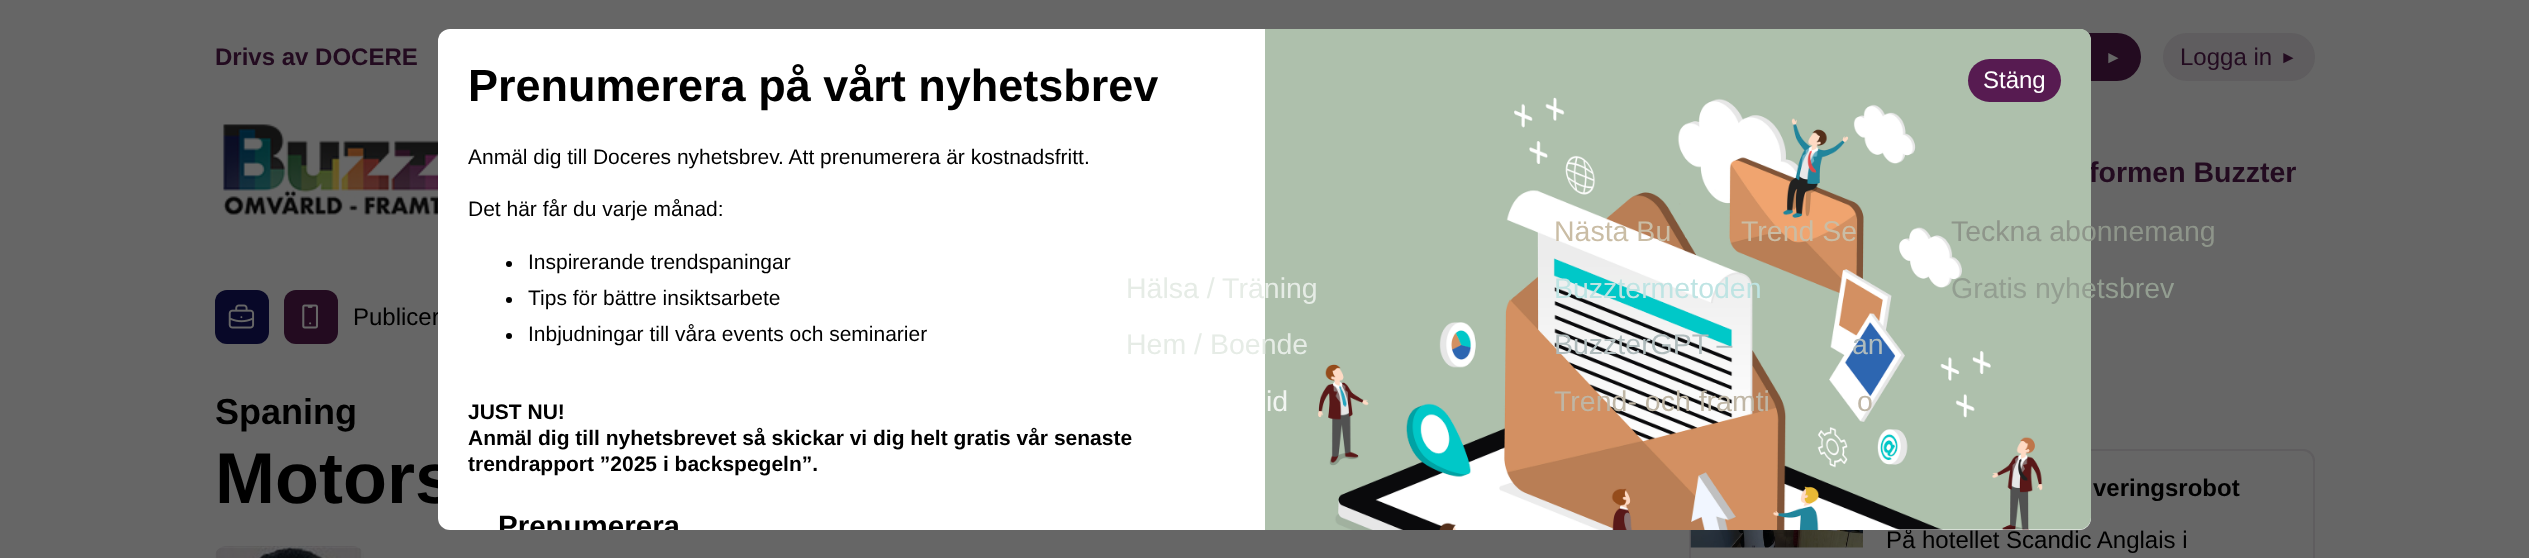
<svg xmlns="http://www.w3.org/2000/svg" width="2529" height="558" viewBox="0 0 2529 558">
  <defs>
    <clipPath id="clip1"><rect x="438" y="29" width="1653" height="501" rx="12"/></clipPath>
  </defs>
  <rect width="100%" height="100%" fill="#666666"/>
  <text x="215" y="65" font-family="Liberation Sans" font-size="24" font-weight="bold" fill="#230b20">Drivs av DOCERE</text>
  <rect x="2039" y="33" width="102" height="48" rx="24" fill="#230b20"/>
  <text x="2105" y="63" font-family="Liberation Sans" font-size="17" fill="#666666">►</text>
  <rect x="2163" y="33" width="152" height="48" rx="24" fill="#5f5d5f"/>
  <text x="2180" y="65" font-family="Liberation Sans" font-size="24" fill="#230b20">Logga in</text>
  <text x="2280" y="63" font-family="Liberation Sans" font-size="17" fill="#230b20">►</text>
  <image x="223" y="124" width="215" height="91" href="img1.png"/>
  <text x="2089" y="182" font-family="Liberation Sans" font-size="28.5" font-weight="bold" fill="#230b20">formen Buzzter</text>
  <text x="353" y="325" font-family="Liberation Sans" font-size="24" fill="#000000">Publicer</text>
  <text x="215" y="503" font-family="Liberation Sans" font-size="72" font-weight="bold" fill="#000000">Motors</text>
  <rect x="1690" y="450" width="624" height="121" rx="11" fill="none" stroke="#5f5d5f" stroke-width="2"/>
  <text x="1886" y="548" font-family="Liberation Sans" font-size="24" fill="#000000">På hotellet Scandic Anglais i</text>
  <rect x="438" y="29" width="1653" height="501" rx="12" fill="#ffffff"/>
  <image x="1265" y="29" width="826" height="501" href="img6.png"/>
  <text x="1126" y="298" font-family="Liberation Sans" font-size="28.5" fill="#e6ece6">Hälsa / Träning</text>
  <text x="1126" y="354" font-family="Liberation Sans" font-size="28.5" fill="#e6ece6">Hem / Boende</text>
  <text x="1266" y="411" font-family="Liberation Sans" font-size="28.5" fill="#f2f5f2">id</text>
  <text x="1554" y="241" font-family="Liberation Sans" font-size="28.5" fill="#cabda5">Nästa Bu</text>
  <text x="1741" y="241" font-family="Liberation Sans" font-size="28.5" fill="#cabda5">Trend Se</text>
  <text x="1554" y="298" font-family="Liberation Sans" font-size="28.5" fill="#bee4e3">Buzztermetoden</text>
  <text x="1554" y="354" font-family="Liberation Sans" font-size="28.5" fill="#b0bcbd">BuzzterGPT –</text>
  <text x="1852" y="354" font-family="Liberation Sans" font-size="28.5" fill="#b0bcbd">an</text>
  <text x="1554" y="411" font-family="Liberation Sans" font-size="28.5" fill="#bfb6a5">Trend- och framti</text>
  <text x="1857" y="411" font-family="Liberation Sans" font-size="28.5" fill="#bfb6a5">o</text>
  <text x="1951" y="241" font-family="Liberation Sans" font-size="28.5" fill="#8e958a">Teckna abonnemang</text>
  <text x="1951" y="298" font-family="Liberation Sans" font-size="28.5" fill="#939e91">Gratis nyhetsbrev</text>
  <rect x="215" y="290" width="54" height="54" rx="12" fill="#080828"/>
  <image x="228" y="304" width="27" height="25" href="img2.png"/>
  <rect x="284" y="290" width="54" height="54" rx="12" fill="#230b20"/>
  <image x="302" y="304" width="16" height="25" href="img3.png"/>
  <text x="215" y="424" font-family="Liberation Sans" font-size="36" font-weight="bold" fill="#000000">Spaning</text>
  <image x="215" y="546" width="149" height="12" href="img4.png"/>
  <image x="1690" y="530" width="173" height="18" href="img5.png"/>
  <text x="2093" y="496" font-family="Liberation Sans" font-size="24" font-weight="bold" fill="#000000">veringsrobot</text>
  <text x="468" y="101" font-family="Liberation Sans" font-size="45" font-weight="bold" fill="#000000">Prenumerera på vårt nyhetsbrev</text>
  <text x="468" y="164" font-family="Liberation Sans" font-size="21" fill="#000000">Anmäl dig till Doceres nyhetsbrev. Att prenumerera är kostnadsfritt.</text>
  <text x="468" y="216" font-family="Liberation Sans" font-size="21" fill="#000000">Det här får du varje månad:</text>
  <circle cx="509" cy="264" r="3" fill="#000000"/>
  <text x="528" y="269" font-family="Liberation Sans" font-size="21" fill="#000000">Inspirerande trendspaningar</text>
  <circle cx="509" cy="300" r="3" fill="#000000"/>
  <text x="528" y="305" font-family="Liberation Sans" font-size="21" fill="#000000">Tips för bättre insiktsarbete</text>
  <circle cx="509" cy="336" r="3" fill="#000000"/>
  <text x="528" y="341" font-family="Liberation Sans" font-size="21" fill="#000000">Inbjudningar till våra events och seminarier</text>
  <text x="468" y="419" font-family="Liberation Sans" font-size="21" font-weight="bold" fill="#000000">JUST NU!</text>
  <text x="468" y="445" font-family="Liberation Sans" font-size="21" font-weight="bold" fill="#000000">Anmäl dig till nyhetsbrevet så skickar vi dig helt gratis vår senaste</text>
  <text x="468" y="471" font-family="Liberation Sans" font-size="21" font-weight="bold" fill="#000000">trendrapport ”2025 i backspegeln”.</text>
  <g clip-path="url(#clip1)">
    <text x="498" y="536" font-family="Liberation Sans" font-size="29.5" font-weight="bold" fill="#000000">Prenumerera</text>
  </g>
  <rect x="1968" y="59" width="93" height="43" rx="21.5" fill="#571b51"/>
  <text x="1983" y="88" font-family="Liberation Sans" font-size="24" fill="#ffffff">Stäng</text>
</svg>
